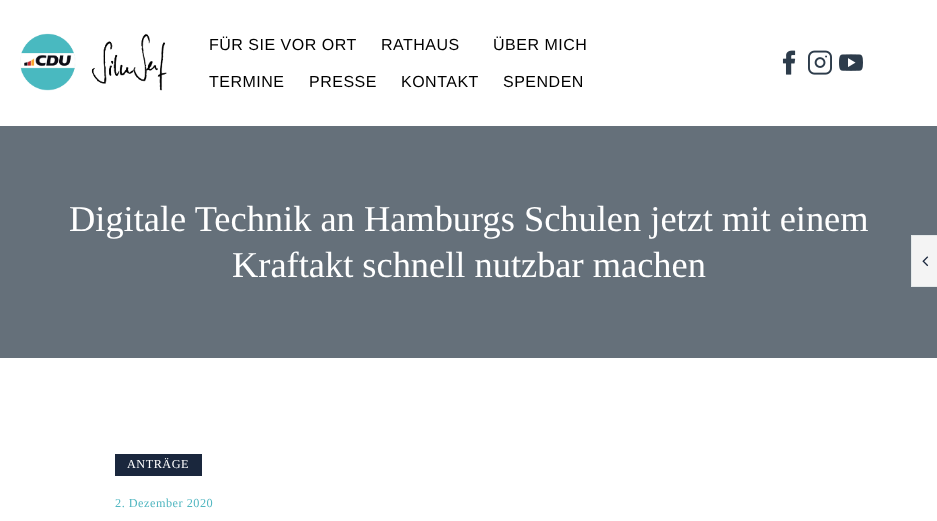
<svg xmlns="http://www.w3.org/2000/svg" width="937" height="521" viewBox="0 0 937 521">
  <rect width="100%" height="100%" fill="#ffffff"/>
  <image x="20" y="33" width="147" height="58" href="img1.png"/>
  <text x="209" y="50" font-family="Liberation Sans" font-size="16" letter-spacing="0.5" fill="#000000">FÜR SIE VOR ORT</text>
  <text x="381" y="50" font-family="Liberation Sans" font-size="16" letter-spacing="0.5" fill="#000000">RATHAUS</text>
  <text x="493" y="50" font-family="Liberation Sans" font-size="16" letter-spacing="0.5" fill="#000000">ÜBER MICH</text>
  <text x="209" y="87" font-family="Liberation Sans" font-size="16" letter-spacing="0.5" fill="#000000">TERMINE</text>
  <text x="309" y="87" font-family="Liberation Sans" font-size="16" letter-spacing="0.5" fill="#000000">PRESSE</text>
  <text x="401" y="87" font-family="Liberation Sans" font-size="16" letter-spacing="0.5" fill="#000000">KONTAKT</text>
  <text x="503" y="87" font-family="Liberation Sans" font-size="16" letter-spacing="0.5" fill="#000000">SPENDEN</text>
  <image x="782" y="50" width="14" height="25" href="img2.png"/>
  <image x="808" y="50" width="24" height="25" href="img3.png"/>
  <image x="839" y="54" width="24" height="17" href="img4.png"/>
  <rect x="0" y="126" width="937" height="232" fill="#65707a"/>
  <text x="69" y="231" font-family="Liberation Serif" font-size="36.4" fill="#ffffff">Digitale Technik an Hamburgs Schulen jetzt mit einem</text>
  <text x="232" y="277" font-family="Liberation Serif" font-size="36.4" fill="#ffffff">Kraftakt schnell nutzbar machen</text>
  <rect x="911.5" y="235.5" width="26" height="51" fill="#f4f4f4" stroke="#e4e9ea"/>
  <image x="922" y="256" width="7" height="11" href="img5.png"/>
  <rect x="115" y="454" width="87" height="22" fill="#1a273d"/>
  <text x="127" y="468" font-family="Liberation Serif" font-size="12.25" letter-spacing="0.5" fill="#ffffff">ANTRÄGE</text>
  <text x="115" y="507" font-family="Liberation Serif" font-size="12.25" letter-spacing="0.5" fill="#52b7c1">2. Dezember 2020</text>
</svg>
